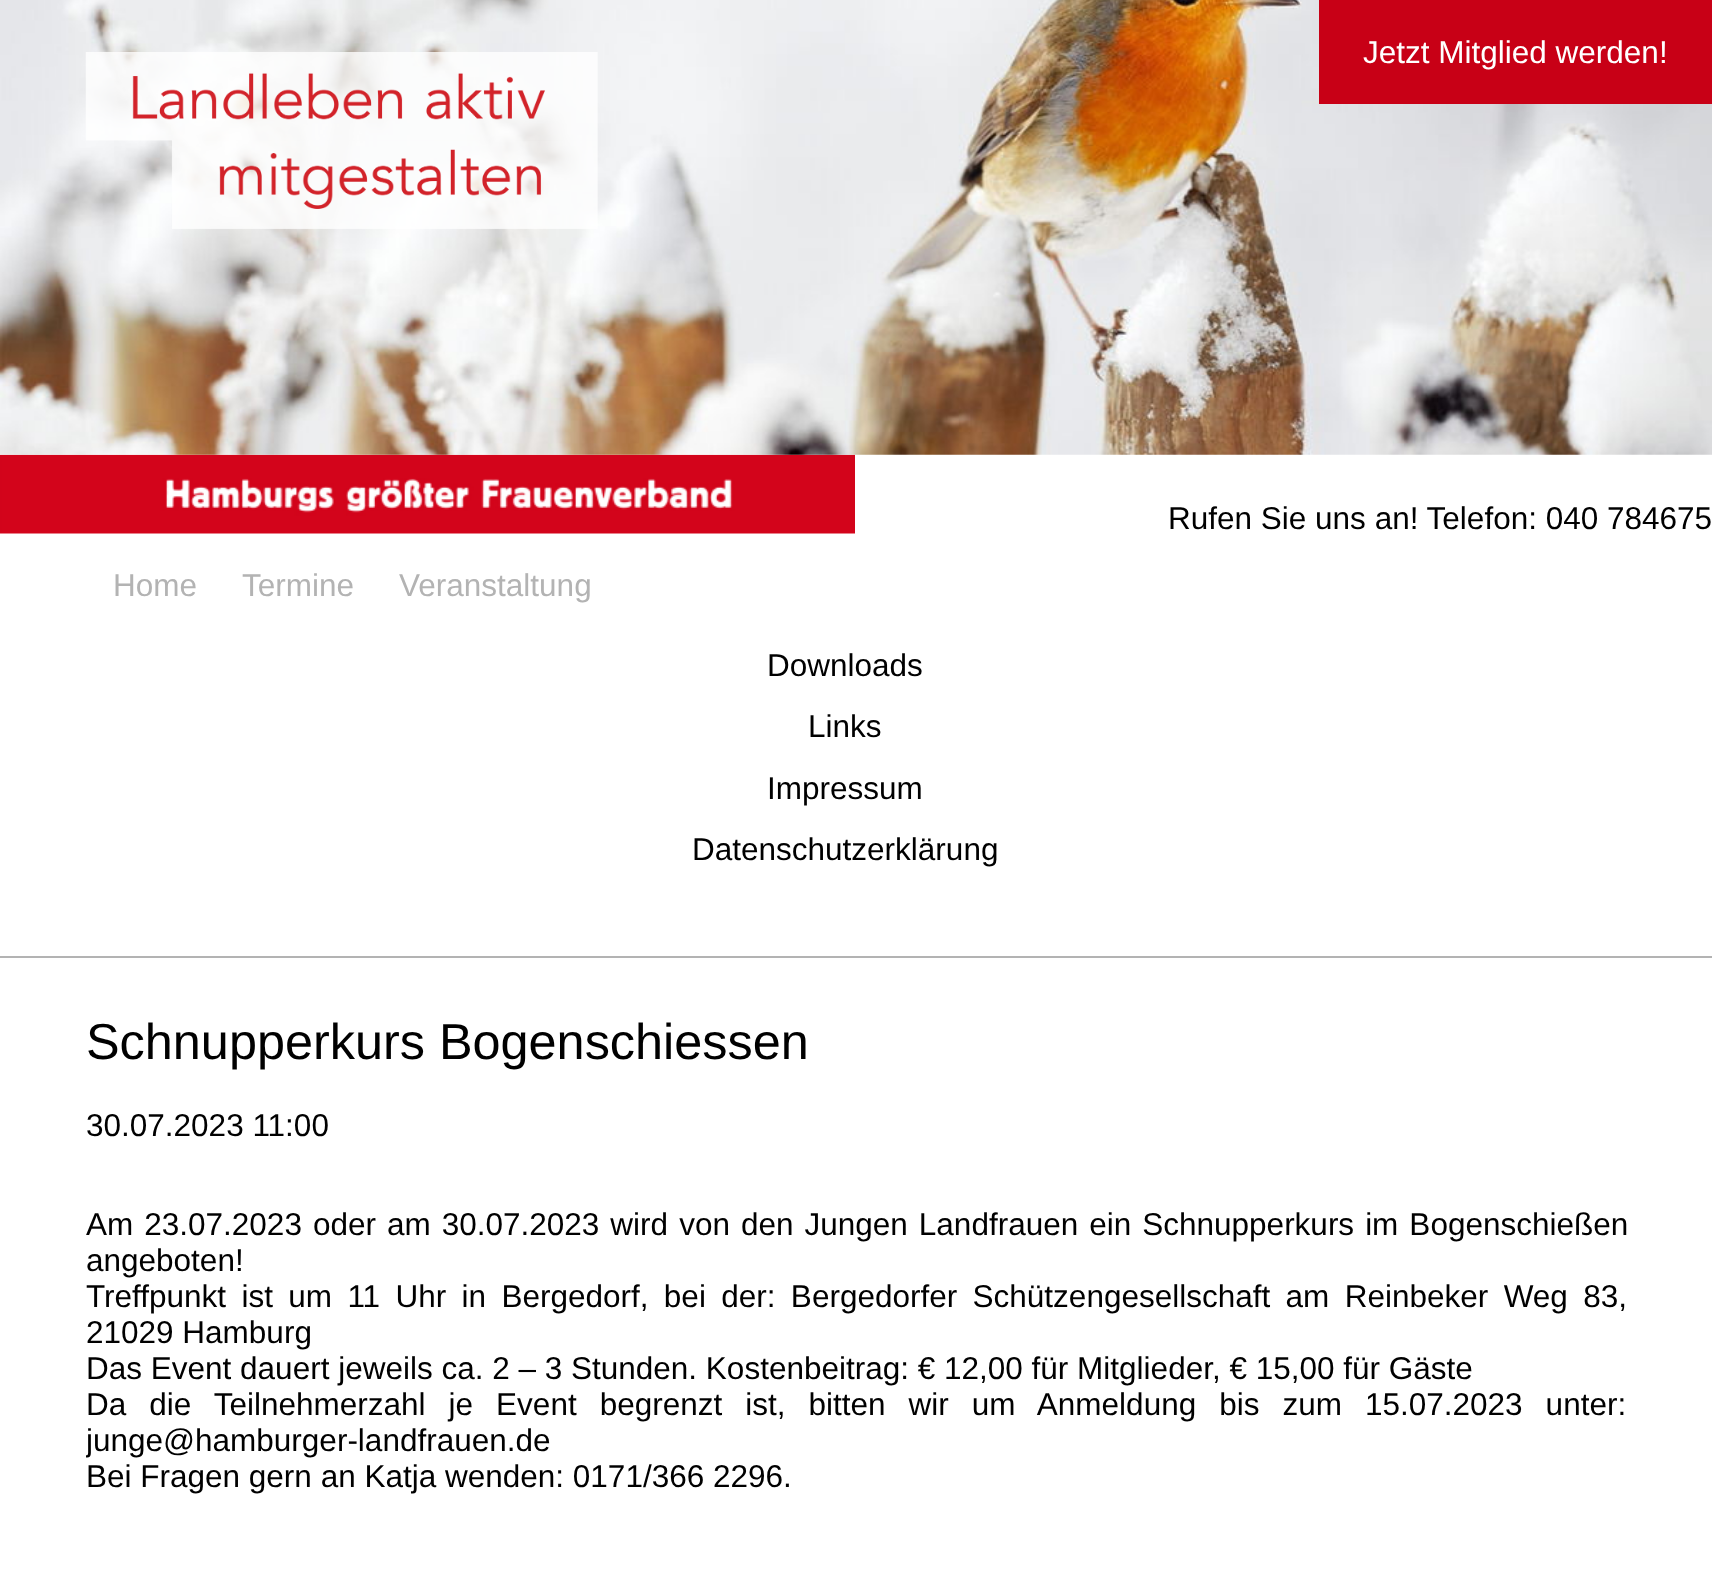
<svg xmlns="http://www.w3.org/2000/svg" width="1712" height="1573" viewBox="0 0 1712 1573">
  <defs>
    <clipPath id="clip1"><rect x="86" y="1175" width="1541" height="351"/></clipPath>
  </defs>
  <rect width="100%" height="100%" fill="#ffffff"/>
  <rect x="0" y="956" width="1712" height="2" fill="#b3b3b3"/>
  <image x="0" y="454" width="855" height="80" href="img3.png"/>
  <image x="0" y="0" width="1712" height="455" href="img1.png"/>
  <image x="85" y="52" width="513" height="177" href="img2.png"/>
  <rect x="1319" y="0" width="393" height="104" fill="#c80016"/>
  <text x="1363" y="63" font-family="Liberation Sans" font-size="31.5" fill="#ffffff">Jetzt Mitglied werden!</text>
  <text x="1168" y="529" font-family="Liberation Sans" font-size="31.5" fill="#000000">Rufen Sie uns an! Telefon: 040 784675</text>
  <text x="113" y="596" font-family="Liberation Sans" font-size="31.5" fill="#b3b3b3">Home</text>
  <text x="242" y="596" font-family="Liberation Sans" font-size="31.5" fill="#b3b3b3">Termine</text>
  <text x="399" y="596" font-family="Liberation Sans" font-size="31.5" fill="#b3b3b3">Veranstaltung</text>
  <text x="767" y="676" font-family="Liberation Sans" font-size="31.5" fill="#000000">Downloads</text>
  <text x="808" y="737" font-family="Liberation Sans" font-size="31.5" fill="#000000">Links</text>
  <text x="767" y="799" font-family="Liberation Sans" font-size="31.5" fill="#000000">Impressum</text>
  <text x="692" y="860" font-family="Liberation Sans" font-size="31.5" fill="#000000">Datenschutzerklärung</text>
  <text x="86" y="1059" font-family="Liberation Sans" font-size="50.4" fill="#000000">Schnupperkurs Bogenschiessen</text>
  <text x="86" y="1136" font-family="Liberation Sans" font-size="31.5" fill="#000000">30.07.2023 11:00</text>
  <text x="86" y="1235" word-spacing="2.25" font-family="Liberation Sans" font-size="31.5" fill="#000000">Am 23.07.2023 oder am 30.07.2023 wird von den Jungen Landfrauen ein Schnupperkurs im Bogenschießen</text>
  <text x="86" y="1271" font-family="Liberation Sans" font-size="31.5" fill="#000000">angeboten!</text>
  <text x="86" y="1307" word-spacing="6.6" font-family="Liberation Sans" font-size="31.5" fill="#000000">Treffpunkt ist um 11 Uhr in Bergedorf, bei der: Bergedorfer Schützengesellschaft am Reinbeker Weg 83,</text>
  <text x="86" y="1343" font-family="Liberation Sans" font-size="31.5" fill="#000000">21029 Hamburg</text>
  <text x="86" y="1379" font-family="Liberation Sans" font-size="31.5" fill="#000000">Das Event dauert jeweils ca. 2 – 3 Stunden. Kostenbeitrag: € 12,00 für Mitglieder, € 15,00 für Gäste</text>
  <text x="86" y="1415" word-spacing="14.25" font-family="Liberation Sans" font-size="31.5" fill="#000000">Da die Teilnehmerzahl je Event begrenzt ist, bitten wir um Anmeldung bis zum 15.07.2023 unter:</text>
  <g clip-path="url(#clip1)">
    <text x="86" y="1451" font-family="Liberation Sans" font-size="31.5" fill="#000000">junge@hamburger-landfrauen.de</text>
  </g>
  <text x="86" y="1487" font-family="Liberation Sans" font-size="31.5" fill="#000000">Bei Fragen gern an Katja wenden: 0171/366 2296.</text>
</svg>
